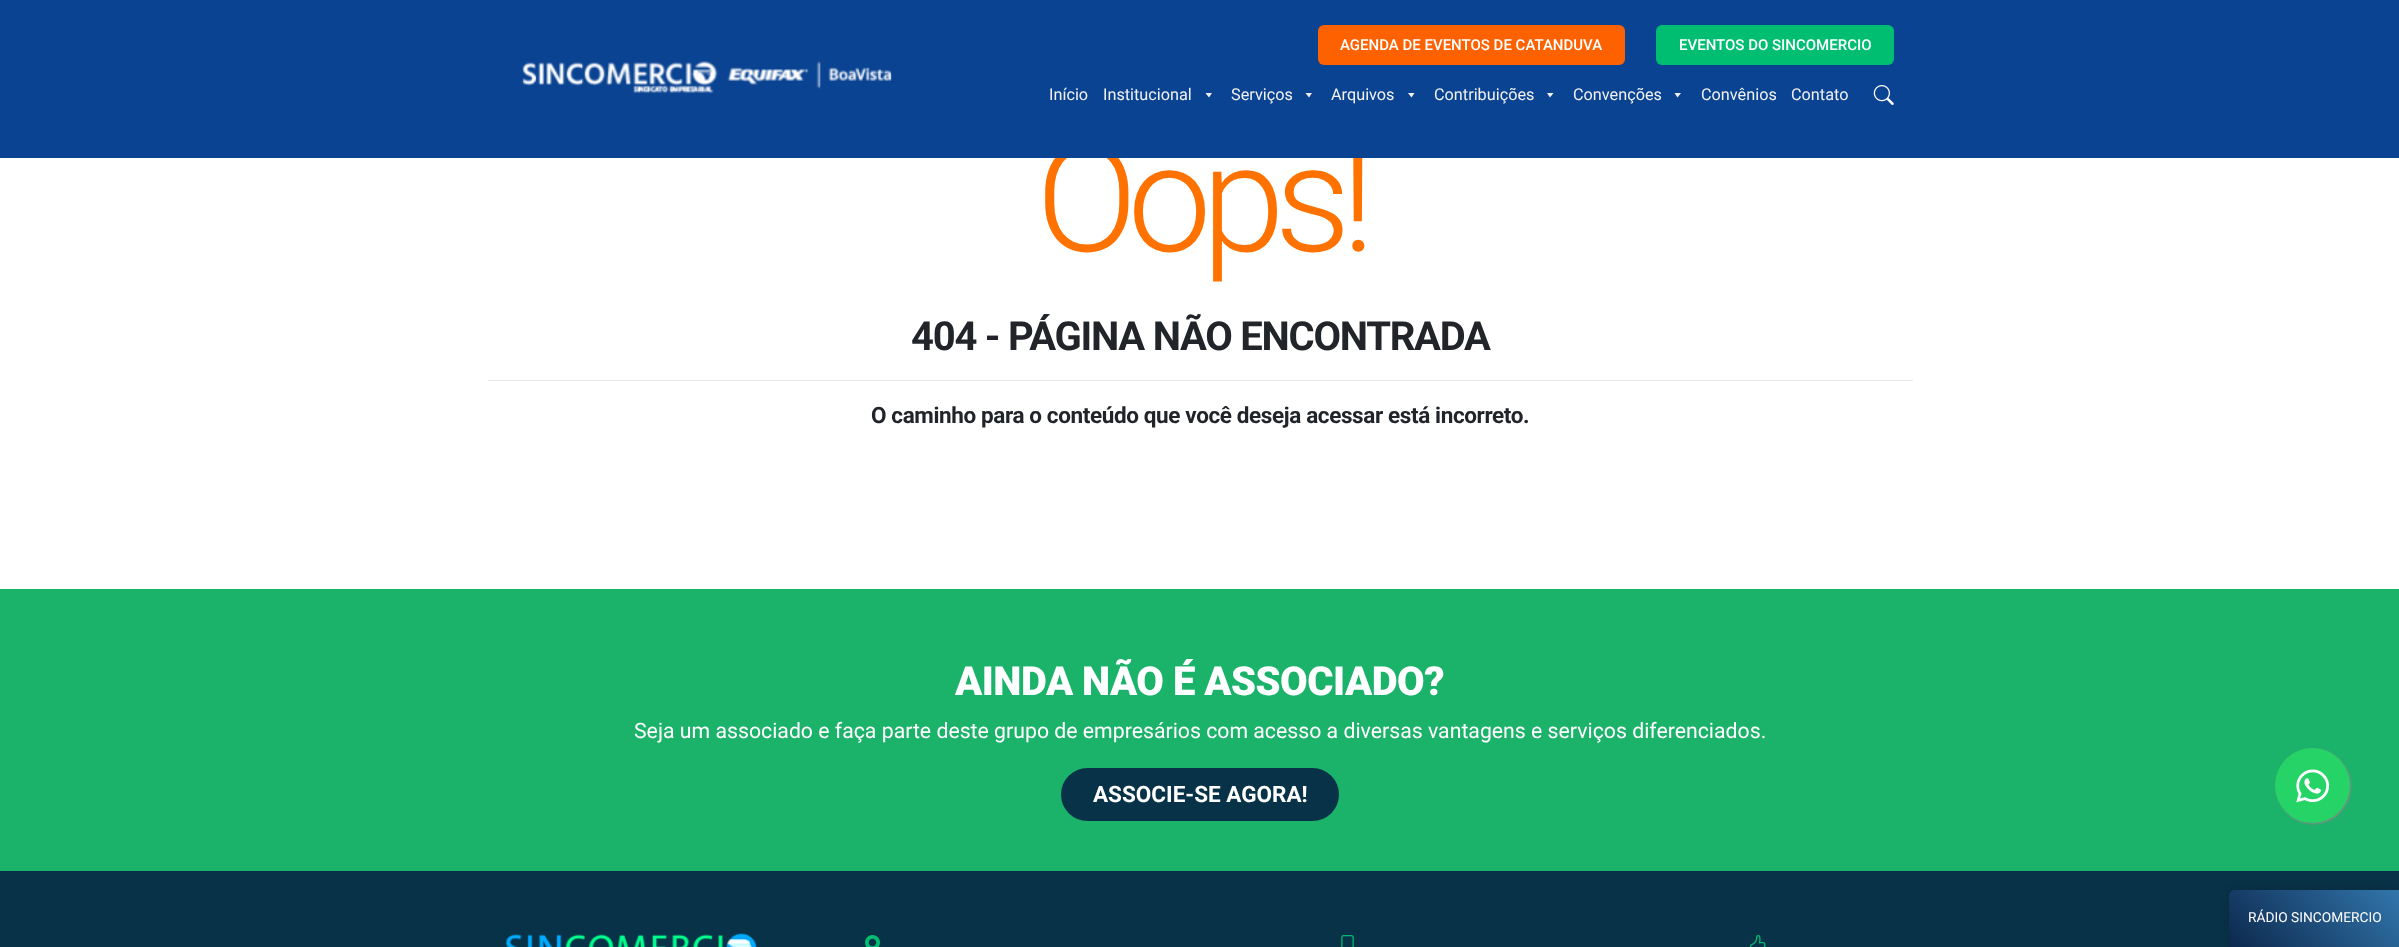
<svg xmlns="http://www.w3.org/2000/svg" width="2399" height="947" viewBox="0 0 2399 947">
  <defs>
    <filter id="blur1" x="-50%" y="-200%" width="200%" height="500%"><feGaussianBlur stdDeviation="1"/></filter>
    <filter id="blur2" x="-50%" y="-200%" width="200%" height="500%"><feGaussianBlur stdDeviation="6"/></filter>
    <linearGradient id="g1" gradientUnits="userSpaceOnUse" x1="2257" y1="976" x2="2372" y2="862"><stop offset="0" stop-color="#0c284d"/><stop offset="1" stop-color="#3276ac"/></linearGradient>
  </defs>
  <rect width="100%" height="100%" fill="#ffffff"/>
  <text x="1036" y="251" font-family="Roboto" font-size="150" font-weight="300" letter-spacing="-10" fill="#ff7200">Oops!</text>
  <rect x="0" y="0" width="2399" height="158" fill="#0a4392"/>
  <image x="522" y="61" width="370" height="33" href="img1.png"/>
  <rect x="1318" y="25" width="307" height="40" rx="6" fill="#fe6100"/>
  <text x="1340" y="50" font-family="Roboto" font-size="15" font-weight="500" fill="#ffffff">AGENDA DE EVENTOS DE CATANDUVA</text>
  <rect x="1656" y="25" width="238" height="40" rx="6" fill="#00be71"/>
  <text x="1679" y="50" font-family="Roboto" font-size="15" font-weight="500" fill="#ffffff">EVENTOS DO SINCOMERCIO</text>
  <text x="1049" y="100" font-family="Roboto" font-size="16.25" fill="#f1f1f1">Início</text>
  <text x="1103" y="100" font-family="Roboto" font-size="16.25" fill="#f1f1f1">Institucional</text>
  <path d="M1212 93L1209 97.5L1205.5 93Z" fill="#f1f1f1"/>
  <text x="1231" y="100" font-family="Roboto" font-size="16.25" fill="#f1f1f1">Serviços</text>
  <path d="M1312 93L1309 97.5L1305.5 93Z" fill="#f1f1f1"/>
  <text x="1331" y="100" font-family="Roboto" font-size="16.25" fill="#f1f1f1">Arquivos</text>
  <path d="M1414.5 93L1411.5 97.5L1408 93Z" fill="#f1f1f1"/>
  <text x="1434" y="100" font-family="Roboto" font-size="16.25" fill="#f1f1f1">Contribuições</text>
  <path d="M1553.5 93L1550 97.5L1547 93Z" fill="#f1f1f1"/>
  <text x="1573" y="100" font-family="Roboto" font-size="16.25" fill="#f1f1f1">Convenções</text>
  <path d="M1681 93L1677.5 97.5L1674.5 93Z" fill="#f1f1f1"/>
  <text x="1701" y="100" font-family="Roboto" font-size="16.25" fill="#f1f1f1">Convênios</text>
  <text x="1791" y="100" font-family="Roboto" font-size="16.25" fill="#f1f1f1">Contato</text>
  <image x="1873" y="85" width="21" height="20" href="img2.png"/>
  <text x="911" y="350" font-family="Roboto" font-size="40" font-weight="bold" letter-spacing="-1.25" fill="#212529">404 - PÁGINA NÃO ENCONTRADA</text>
  <rect x="488" y="380" width="1425" height="1" fill="#e6e6e6"/>
  <text x="871" y="423" font-family="Roboto" font-size="22.5" font-weight="bold" letter-spacing="-0.38" fill="#212529">O caminho para o conteúdo que você deseja acessar está incorreto.</text>
  <rect x="0" y="589" width="2399" height="282" fill="#1bb26a"/>
  <text x="955" y="695" font-family="Roboto" font-size="40" font-weight="900" letter-spacing="-0.5" fill="#ffffff">AINDA NÃO É ASSOCIADO?</text>
  <text x="634" y="738" font-family="Roboto" font-size="21.25" fill="#ffffff">Seja um associado e faça parte deste grupo de empresários com acesso a diversas vantagens e serviços diferenciados.</text>
  <rect x="1061" y="768" width="278" height="53" rx="26.5" fill="#083247"/>
  <text x="1093" y="802" font-family="Roboto" font-size="22.5" font-weight="bold" fill="#ffffff">ASSOCIE-SE AGORA!</text>
  <rect x="2276" y="749" width="75" height="75" rx="37.5" fill="#888888" filter="url(#blur1)"/>
  <circle cx="2312.5" cy="785.5" r="37.5" fill="#25d366"/>
  <image x="2296" y="769" width="34" height="34" href="img3.png"/>
  <rect x="0" y="871" width="2399" height="76" fill="#083247"/>
  <image x="506" y="933" width="251" height="14" href="img4.png"/>
  <image x="865" y="935" width="15" height="12" href="img5.png"/>
  <image x="1341" y="935" width="13" height="12" href="img6.png"/>
  <image x="1749" y="935" width="17" height="12" href="img7.png"/>
  <rect x="2229" y="890" width="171" height="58" rx="6" fill="#000000" fill-opacity="0.15" filter="url(#blur2)"/>
  <path d="M2235 890H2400V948H2229V896C2229 892.5 2231.5 890 2235 890Z" fill="url(#g1)"/>
  <text x="2248" y="922" font-family="Roboto" font-size="13.75" fill="#ffffff">RÁDIO SINCOMERCIO</text>
</svg>
